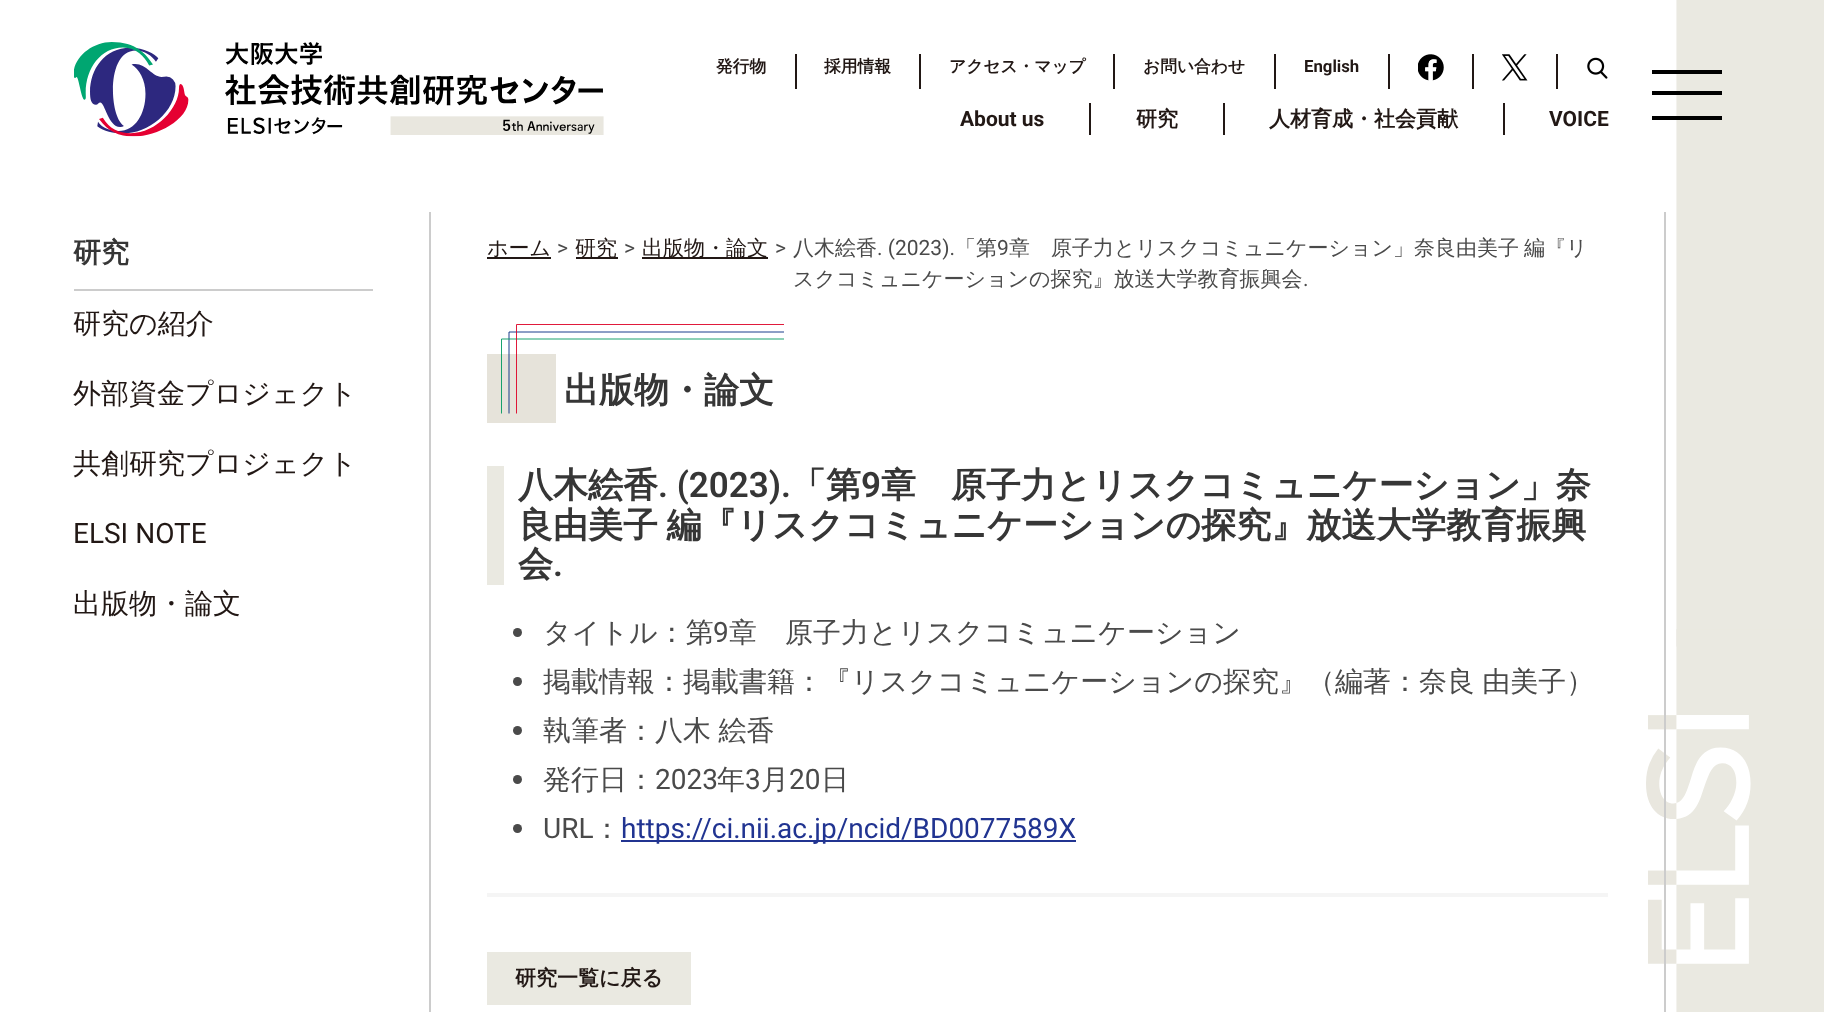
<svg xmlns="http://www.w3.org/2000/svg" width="1824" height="1012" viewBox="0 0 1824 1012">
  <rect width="100%" height="100%" fill="#ffffff"/>
  <image x="1646" y="0" width="178" height="1012" href="img1.png"/>
  <image x="74" y="42" width="530" height="95" href="img2.png"/>
  <rect x="795" y="54" width="2" height="35" fill="#221815"/>
  <text x="716" y="72" font-family="WenQuanYi Zen Hei" font-size="16.75" font-weight="bold" fill="#221815">発行物</text>
  <rect x="919" y="54" width="2" height="35" fill="#221815"/>
  <text x="824" y="72" font-family="WenQuanYi Zen Hei" font-size="16.75" font-weight="bold" fill="#221815">採用情報</text>
  <rect x="1113" y="54" width="2" height="35" fill="#221815"/>
  <text x="949" y="72" font-family="WenQuanYi Zen Hei" font-size="16.75" font-weight="bold" fill="#221815">アクセス・マップ</text>
  <rect x="1274" y="54" width="2" height="35" fill="#221815"/>
  <text x="1143" y="72" font-family="WenQuanYi Zen Hei" font-size="16.75" font-weight="bold" fill="#221815">お問い合わせ</text>
  <rect x="1388" y="54" width="2" height="35" fill="#221815"/>
  <text x="1304" y="72" font-family="Roboto" font-size="16.75" font-weight="bold" fill="#221815">English</text>
  <rect x="1472" y="54" width="2" height="35" fill="#221815"/>
  <image x="1418" y="54" width="26" height="27" href="img3.png"/>
  <rect x="1556" y="54" width="2" height="35" fill="#221815"/>
  <image x="1502" y="54" width="26" height="27" href="img4.png"/>
  <image x="1587" y="57" width="21" height="22" href="img5.png"/>
  <rect x="1089" y="103" width="2" height="32" fill="#221815"/>
  <text x="960" y="126" font-family="Roboto" font-size="21" font-weight="bold" fill="#221815">About us</text>
  <rect x="1223" y="103" width="2" height="32" fill="#221815"/>
  <text x="1136" y="126" font-family="WenQuanYi Zen Hei" font-size="21" font-weight="bold" fill="#221815">研究</text>
  <rect x="1503" y="103" width="2" height="32" fill="#221815"/>
  <text x="1269" y="126" font-family="WenQuanYi Zen Hei" font-size="21" font-weight="bold" fill="#221815">人材育成・社会貢献</text>
  <text x="1549" y="126" font-family="Roboto" font-size="21" font-weight="bold" fill="#221815">VOICE</text>
  <rect x="1652" y="70" width="70" height="4" fill="#000000"/>
  <rect x="1652" y="91" width="70" height="4" fill="#000000"/>
  <rect x="1652" y="116" width="70" height="4" fill="#000000"/>
  <rect x="74" y="289" width="299" height="2" fill="#cccccc"/>
  <text x="73" y="262" font-family="WenQuanYi Zen Hei" font-size="28" font-weight="bold" fill="#363636">研究</text>
  <text x="73" y="333" font-family="WenQuanYi Zen Hei" font-size="28" font-weight="500" fill="#221815">研究の紹介</text>
  <text x="73" y="403" font-family="WenQuanYi Zen Hei" font-size="28" font-weight="500" fill="#221815">外部資金プロジェクト</text>
  <text x="73" y="473" font-family="WenQuanYi Zen Hei" font-size="28" font-weight="500" fill="#221815">共創研究プロジェクト</text>
  <text x="73" y="543" font-family="Roboto" font-size="28" fill="#221815">ELSI NOTE</text>
  <text x="73" y="613" font-family="WenQuanYi Zen Hei" font-size="28" font-weight="500" fill="#221815">出版物・論文</text>
  <rect x="1664" y="212" width="2" height="800" fill="#cccccc"/>
  <rect x="429" y="212" width="2" height="800" fill="#cccccc"/>
  <rect x="487" y="257" width="64" height="2" fill="#221815"/>
  <text x="487" y="255" font-family="WenQuanYi Zen Hei" font-size="21" font-weight="500" fill="#221815">ホーム</text>
  <text x="557" y="255" font-family="Roboto" font-size="21" fill="#4a4a4a">&gt;</text>
  <rect x="576" y="257" width="42" height="2" fill="#221815"/>
  <text x="575" y="255" font-family="WenQuanYi Zen Hei" font-size="21" font-weight="500" fill="#221815">研究</text>
  <text x="624" y="255" font-family="Roboto" font-size="21" fill="#4a4a4a">&gt;</text>
  <rect x="642" y="257" width="126" height="2" fill="#221815"/>
  <text x="642" y="255" font-family="WenQuanYi Zen Hei" font-size="21" font-weight="500" fill="#221815">出版物・論文</text>
  <text x="775" y="255" font-family="Roboto" font-size="21" fill="#4a4a4a">&gt;</text>
  <text x="793" y="255" font-family="WenQuanYi Zen Hei" font-size="21" font-weight="500" fill="#4a4a4a">八木絵香</text>
  <text x="877" y="255" font-family="Roboto" font-size="21" fill="#4a4a4a">. (2023).</text>
  <text x="955" y="255" font-family="WenQuanYi Zen Hei" font-size="21" font-weight="500" fill="#4a4a4a">「第</text>
  <text x="997" y="255" font-family="Roboto" font-size="21" fill="#4a4a4a">9</text>
  <text x="1009" y="255" font-family="WenQuanYi Zen Hei" font-size="21" font-weight="500" fill="#4a4a4a">章　原子力とリスクコミュニケーション」奈良由美子</text>
  <text x="1524" y="255" font-family="WenQuanYi Zen Hei" font-size="21" font-weight="500" fill="#4a4a4a">編『リ</text>
  <text x="793" y="286" font-family="WenQuanYi Zen Hei" font-size="21" font-weight="500" fill="#4a4a4a">スクコミュニケーションの探究』放送大学教育振興会</text>
  <text x="1303" y="286" font-family="Roboto" font-size="21" fill="#4a4a4a">.</text>
  <rect x="487" y="354" width="69" height="69" fill="#e6e3da"/>
  <path d="M509 413.5V332H784" fill="none" stroke="#002880" stroke-width="0.9"/>
  <path d="M784 339H501.5V413.5" fill="none" stroke="#00995e" stroke-width="0.9"/>
  <path d="M784 324.5H516.5V413.5" fill="none" stroke="#dc0025" stroke-width="0.9"/>
  <text x="564" y="402" font-family="WenQuanYi Zen Hei" font-size="35" font-weight="bold" fill="#363636">出版物・論文</text>
  <rect x="487" y="466" width="17" height="119" fill="#eae9e1"/>
  <text x="518" y="497" font-family="WenQuanYi Zen Hei" font-size="35" font-weight="bold" fill="#363636">八木絵香</text>
  <text x="658" y="497" font-family="Roboto" font-size="35" font-weight="600" fill="#363636">. (2023).</text>
  <text x="791" y="497" font-family="WenQuanYi Zen Hei" font-size="35" font-weight="bold" fill="#363636">「第</text>
  <text x="861" y="497" font-family="Roboto" font-size="35" font-weight="600" fill="#363636">9</text>
  <text x="881" y="497" font-family="WenQuanYi Zen Hei" font-size="35" font-weight="bold" fill="#363636">章　原子力とリスクコミュニケーション」奈</text>
  <text x="518" y="537" word-spacing="-2" font-family="WenQuanYi Zen Hei" font-size="35" font-weight="bold" fill="#363636">良由美子 編『リスクコミュニケーションの探究』放送大学教育振興</text>
  <text x="518" y="576" font-family="WenQuanYi Zen Hei" font-size="35" font-weight="bold" fill="#363636">会</text>
  <text x="553" y="576" font-family="Roboto" font-size="35" font-weight="600" fill="#363636">.</text>
  <circle cx="517.5" cy="632.5" r="4.5" fill="#4a4a4a"/>
  <text x="543" y="642" font-family="WenQuanYi Zen Hei" font-size="28" font-weight="500" fill="#4a4a4a">タイトル：第</text>
  <text x="713" y="642" font-family="Roboto" font-size="28" fill="#4a4a4a">9</text>
  <text x="729" y="642" font-family="WenQuanYi Zen Hei" font-size="28" font-weight="500" fill="#4a4a4a">章　原子力とリスクコミュニケーション</text>
  <circle cx="517.5" cy="681.5" r="4.5" fill="#4a4a4a"/>
  <text x="543" y="691" word-spacing="-1" font-family="WenQuanYi Zen Hei" font-size="28" font-weight="500" fill="#4a4a4a">掲載情報：掲載書籍：『リスクコミュニケーションの探究』（編著：奈良 由美子）</text>
  <circle cx="517.5" cy="730.5" r="4.5" fill="#4a4a4a"/>
  <text x="543" y="740" word-spacing="-1" font-family="WenQuanYi Zen Hei" font-size="28" font-weight="500" fill="#4a4a4a">執筆者：八木 絵香</text>
  <circle cx="517.5" cy="779.5" r="4.5" fill="#4a4a4a"/>
  <text x="543" y="789" font-family="WenQuanYi Zen Hei" font-size="28" font-weight="500" fill="#4a4a4a">発行日：</text>
  <text x="655" y="789" font-family="Roboto" font-size="28" fill="#4a4a4a">2023</text>
  <text x="717" y="789" font-family="WenQuanYi Zen Hei" font-size="28" font-weight="500" fill="#4a4a4a">年</text>
  <text x="745" y="789" font-family="Roboto" font-size="28" fill="#4a4a4a">3</text>
  <text x="761" y="789" font-family="WenQuanYi Zen Hei" font-size="28" font-weight="500" fill="#4a4a4a">月</text>
  <text x="789" y="789" font-family="Roboto" font-size="28" fill="#4a4a4a">20</text>
  <text x="821" y="789" font-family="WenQuanYi Zen Hei" font-size="28" font-weight="500" fill="#4a4a4a">日</text>
  <circle cx="517.5" cy="828.5" r="4.5" fill="#4a4a4a"/>
  <text x="543" y="838" font-family="Roboto" font-size="28" fill="#4a4a4a">URL</text>
  <text x="593" y="838" font-family="WenQuanYi Zen Hei" font-size="28" font-weight="500" fill="#4a4a4a">：</text>
  <rect x="621" y="840" width="455" height="2" fill="#213491"/>
  <text x="621" y="838" font-family="Roboto" font-size="28" fill="#213491">https://ci.nii.ac.jp/ncid/BD0077589X</text>
  <rect x="487" y="893" width="1121" height="4" fill="#f5f5f5"/>
  <rect x="487" y="952" width="204" height="53" fill="#eae9e1"/>
  <text x="515" y="985" font-family="WenQuanYi Zen Hei" font-size="21" font-weight="bold" fill="#221815">研究一覧に戻る</text>
</svg>
